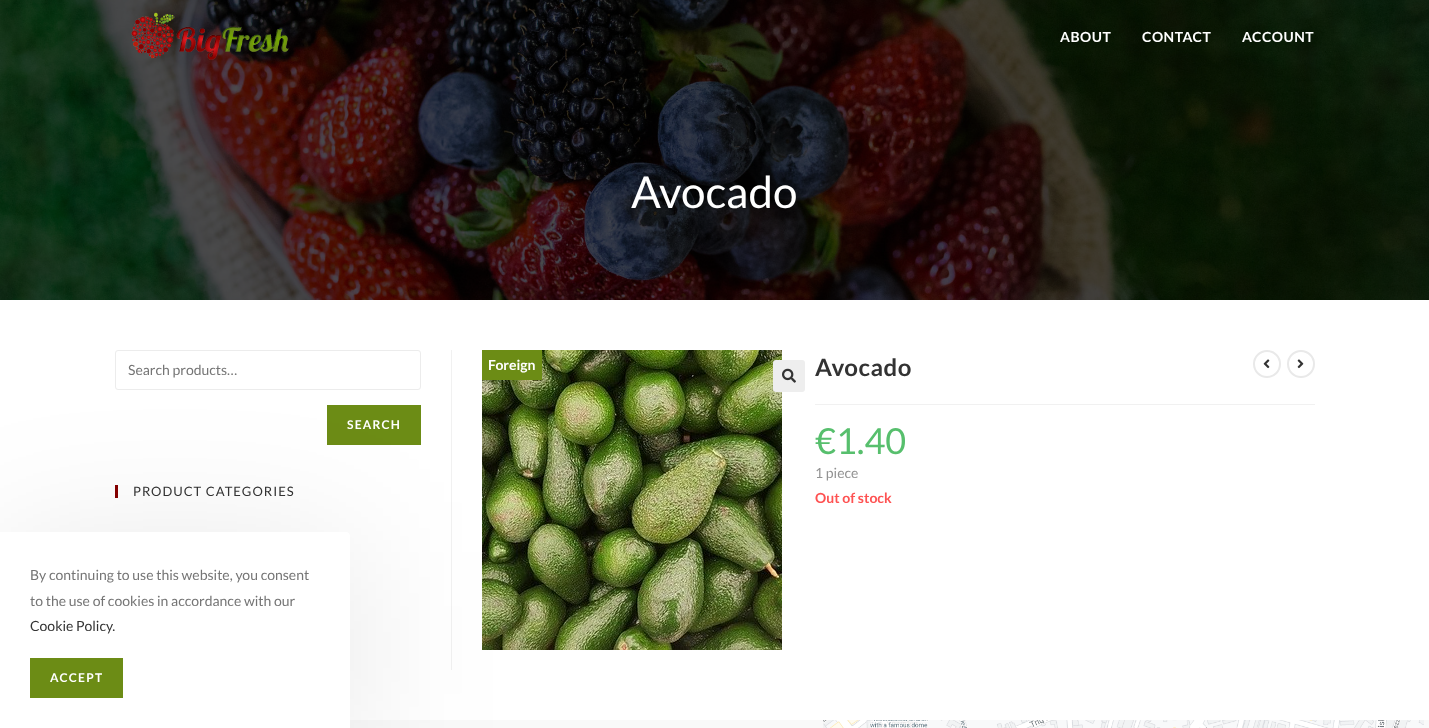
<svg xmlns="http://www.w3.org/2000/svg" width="1429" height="728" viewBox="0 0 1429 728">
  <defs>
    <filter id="blur1" x="-50%" y="-200%" width="200%" height="500%"><feGaussianBlur stdDeviation="75"/></filter>
  </defs>
  <rect width="100%" height="100%" fill="#ffffff"/>
  <image x="0" y="0" width="1429" height="300" href="img2.png"/>
  <image x="131" y="12" width="158" height="48" href="img1.png"/>
  <text x="1060" y="42" font-family="Lato" font-size="14" font-weight="bold" letter-spacing="0.5" fill="#ffffff">ABOUT</text>
  <text x="1142" y="42" font-family="Lato" font-size="14" font-weight="bold" letter-spacing="0.5" fill="#ffffff">CONTACT</text>
  <text x="1242" y="42" font-family="Lato" font-size="14" font-weight="bold" letter-spacing="0.5" fill="#ffffff">ACCOUNT</text>
  <text x="631" y="208" font-family="Lato" font-size="44" fill="#ffffff">Avocado</text>
  <rect x="115.5" y="350.5" width="305" height="39" rx="2.5" fill="none" stroke="#ececec"/>
  <text x="128" y="375" font-family="Lato" font-size="14" fill="#757575">Search products…</text>
  <rect x="327" y="405" width="94" height="40" fill="#6c8c15"/>
  <text x="347" y="429" font-family="Lato" font-size="12" font-weight="bold" letter-spacing="1.25" fill="#ffffff">SEARCH</text>
  <rect x="115" y="485" width="3" height="13" fill="#860000"/>
  <text x="133" y="496" font-family="Lato" font-size="13" letter-spacing="1" fill="#333333">PRODUCT CATEGORIES</text>
  <rect x="451" y="350" width="1" height="320" fill="#f1f1f1"/>
  <image x="482" y="350" width="300" height="300" href="img3.png"/>
  <rect x="482" y="350" width="60" height="30" fill="#6c8c15"/>
  <text x="488" y="370" font-family="Lato" font-size="14" font-weight="bold" fill="#ffffff">Foreign</text>
  <rect x="773" y="360" width="32" height="32" rx="3" fill="#eeeeee"/>
  <image x="782" y="368" width="14" height="15" href="img4.png"/>
  <rect x="815" y="404" width="500" height="1" fill="#f1f1f1"/>
  <text x="815" y="376" font-family="Lato" font-size="24" font-weight="bold" letter-spacing="0.5" fill="#333333">Avocado</text>
  <text x="815" y="454" font-family="Lato" font-size="36" fill="#57bf6d">€1.40</text>
  <text x="815" y="478" font-family="Lato" font-size="14" fill="#929292">1 piece</text>
  <text x="815" y="503" font-family="Lato" font-size="14" font-weight="bold" fill="#fe5252">Out of stock</text>
  <circle cx="1267" cy="364" r="13" fill="none" stroke="#e9e9e9" stroke-width="2"/>
  <image x="1263" y="359" width="7" height="10" href="img5.png"/>
  <circle cx="1301" cy="364" r="13" fill="none" stroke="#e9e9e9" stroke-width="2"/>
  <image x="1297" y="359" width="7" height="10" href="img6.png"/>
  <rect x="350" y="720" width="1079" height="8" fill="#f9f9f9"/>
  <image x="823" y="720" width="601" height="8" href="img7.png"/>
  <rect x="0" y="552" width="350" height="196" rx="4" fill="#000000" fill-opacity="0.1" filter="url(#blur1)"/>
  <path d="M0 532H346C348 532 350 534 350 536V728H0Z" fill="#ffffff"/>
  <text x="30" y="580" font-family="Lato" font-size="14" fill="#757575">By continuing to use this website, you consent</text>
  <text x="30" y="606" font-family="Lato" font-size="14" fill="#757575">to the use of cookies in accordance with our</text>
  <text x="30" y="631" font-family="Lato" font-size="14" fill="#333333">Cookie Policy.</text>
  <rect x="30" y="658" width="93" height="40" fill="#6c8c15"/>
  <text x="50" y="682" font-family="Lato" font-size="12" font-weight="bold" letter-spacing="1.25" fill="#ffffff">ACCEPT</text>
</svg>
